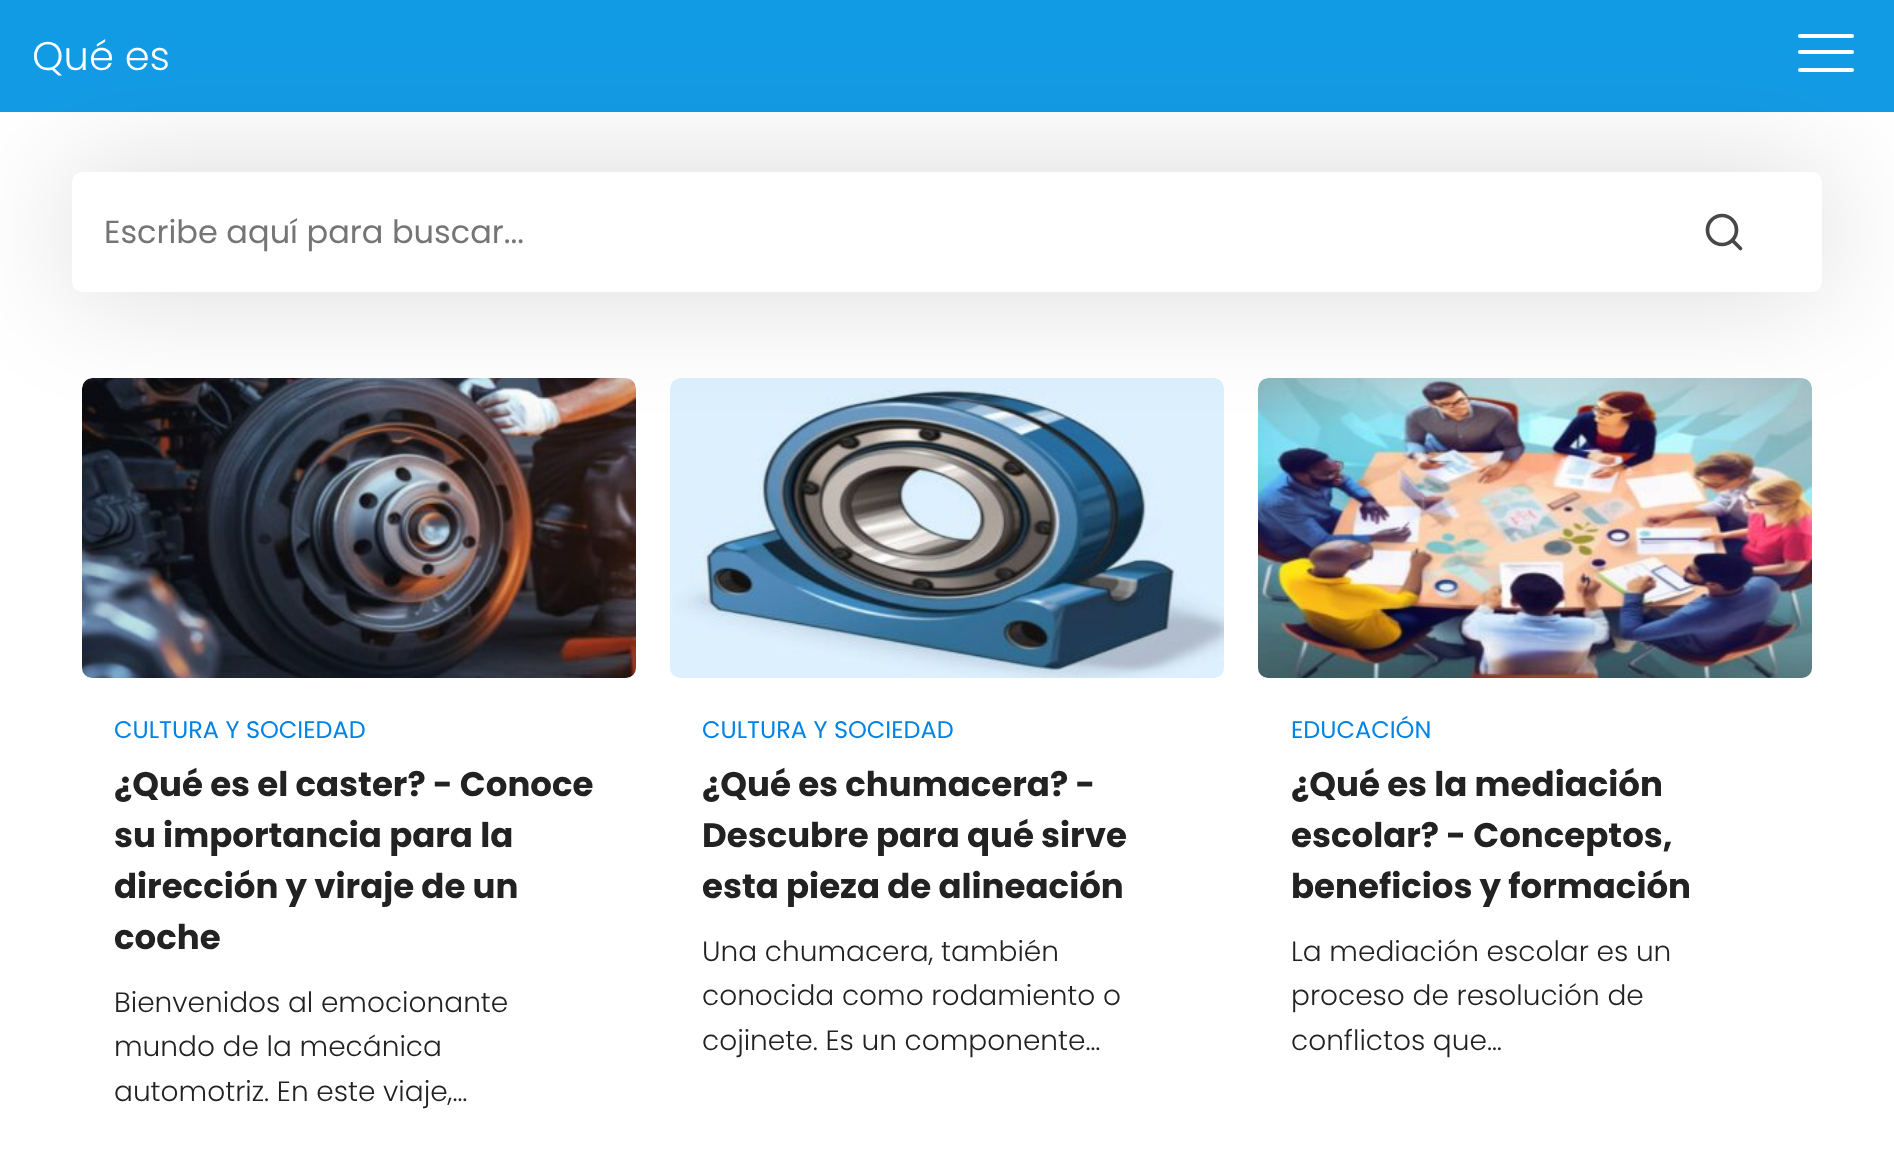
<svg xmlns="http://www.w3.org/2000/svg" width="1894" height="1155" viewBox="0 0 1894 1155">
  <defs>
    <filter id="blur1" x="-50%" y="-200%" width="200%" height="500%"><feGaussianBlur stdDeviation="60"/></filter>
  </defs>
  <rect width="100%" height="100%" fill="#ffffff"/>
  <rect x="0" y="0" width="1894" height="112" fill="#129be5"/>
  <text x="32" y="70" font-family="Poppins" font-size="40" font-weight="300" fill="#ffffff">Qué es</text>
  <rect x="1798" y="34" width="56" height="4" rx="2" fill="#ffffff"/>
  <rect x="1798" y="50" width="56" height="4" rx="2" fill="#ffffff"/>
  <rect x="1798" y="68" width="56" height="4" rx="2" fill="#ffffff"/>
  <image x="82" y="378" width="554" height="300" href="img1.png"/>
  <image x="670" y="378" width="554" height="300" href="img2.png"/>
  <image x="1258" y="378" width="554" height="300" href="img3.png"/>
  <rect x="72" y="172" width="1750" height="120" rx="10" fill="#000000" fill-opacity="0.15" filter="url(#blur1)"/>
  <rect x="72" y="172" width="1750" height="120" rx="10" fill="#ffffff"/>
  <text x="104" y="243" font-family="Poppins" font-size="32" fill="#757575">Escribe aquí para buscar...</text>
  <circle cx="1722" cy="230" r="14.5" fill="none" stroke="#484848" stroke-width="3.7"/>
  <path d="M1740.5 248.5L1732.5 240.5" fill="none" stroke="#484848" stroke-width="3.7" stroke-linecap="round" stroke-linejoin="round"/>
  <text x="114" y="738" font-family="Poppins" font-size="24" fill="#0183e4">CULTURA Y SOCIEDAD</text>
  <text x="114" y="796" font-family="Poppins" font-size="34" font-weight="bold" fill="#222222">¿Qué es el caster? - Conoce</text>
  <text x="114" y="847" font-family="Poppins" font-size="34" font-weight="bold" fill="#222222">su importancia para la</text>
  <text x="114" y="898" font-family="Poppins" font-size="34" font-weight="bold" fill="#222222">dirección y viraje de un</text>
  <text x="114" y="949" font-family="Poppins" font-size="34" font-weight="bold" fill="#222222">coche</text>
  <text x="114" y="1012" font-family="Poppins" font-size="28" font-weight="300" fill="#222222">Bienvenidos al emocionante</text>
  <text x="114" y="1056" font-family="Poppins" font-size="28" font-weight="300" fill="#222222">mundo de la mecánica</text>
  <text x="114" y="1101" font-family="Poppins" font-size="28" font-weight="300" fill="#222222">automotriz. En este viaje,…</text>
  <text x="702" y="738" font-family="Poppins" font-size="24" fill="#0183e4">CULTURA Y SOCIEDAD</text>
  <text x="702" y="796" font-family="Poppins" font-size="34" font-weight="bold" fill="#222222">¿Qué es chumacera? -</text>
  <text x="702" y="847" font-family="Poppins" font-size="34" font-weight="bold" fill="#222222">Descubre para qué sirve</text>
  <text x="702" y="898" font-family="Poppins" font-size="34" font-weight="bold" fill="#222222">esta pieza de alineación</text>
  <text x="702" y="961" font-family="Poppins" font-size="28" font-weight="300" fill="#222222">Una chumacera, también</text>
  <text x="702" y="1005" font-family="Poppins" font-size="28" font-weight="300" fill="#222222">conocida como rodamiento o</text>
  <text x="702" y="1050" font-family="Poppins" font-size="28" font-weight="300" fill="#222222">cojinete. Es un componente…</text>
  <text x="1291" y="738" font-family="Poppins" font-size="24" fill="#0183e4">EDUCACIÓN</text>
  <text x="1291" y="796" font-family="Poppins" font-size="34" font-weight="bold" fill="#222222">¿Qué es la mediación</text>
  <text x="1291" y="847" font-family="Poppins" font-size="34" font-weight="bold" fill="#222222">escolar? - Conceptos,</text>
  <text x="1291" y="898" font-family="Poppins" font-size="34" font-weight="bold" fill="#222222">beneficios y formación</text>
  <text x="1291" y="961" font-family="Poppins" font-size="28" font-weight="300" fill="#222222">La mediación escolar es un</text>
  <text x="1291" y="1005" font-family="Poppins" font-size="28" font-weight="300" fill="#222222">proceso de resolución de</text>
  <text x="1291" y="1050" font-family="Poppins" font-size="28" font-weight="300" fill="#222222">conflictos que…</text>
</svg>
